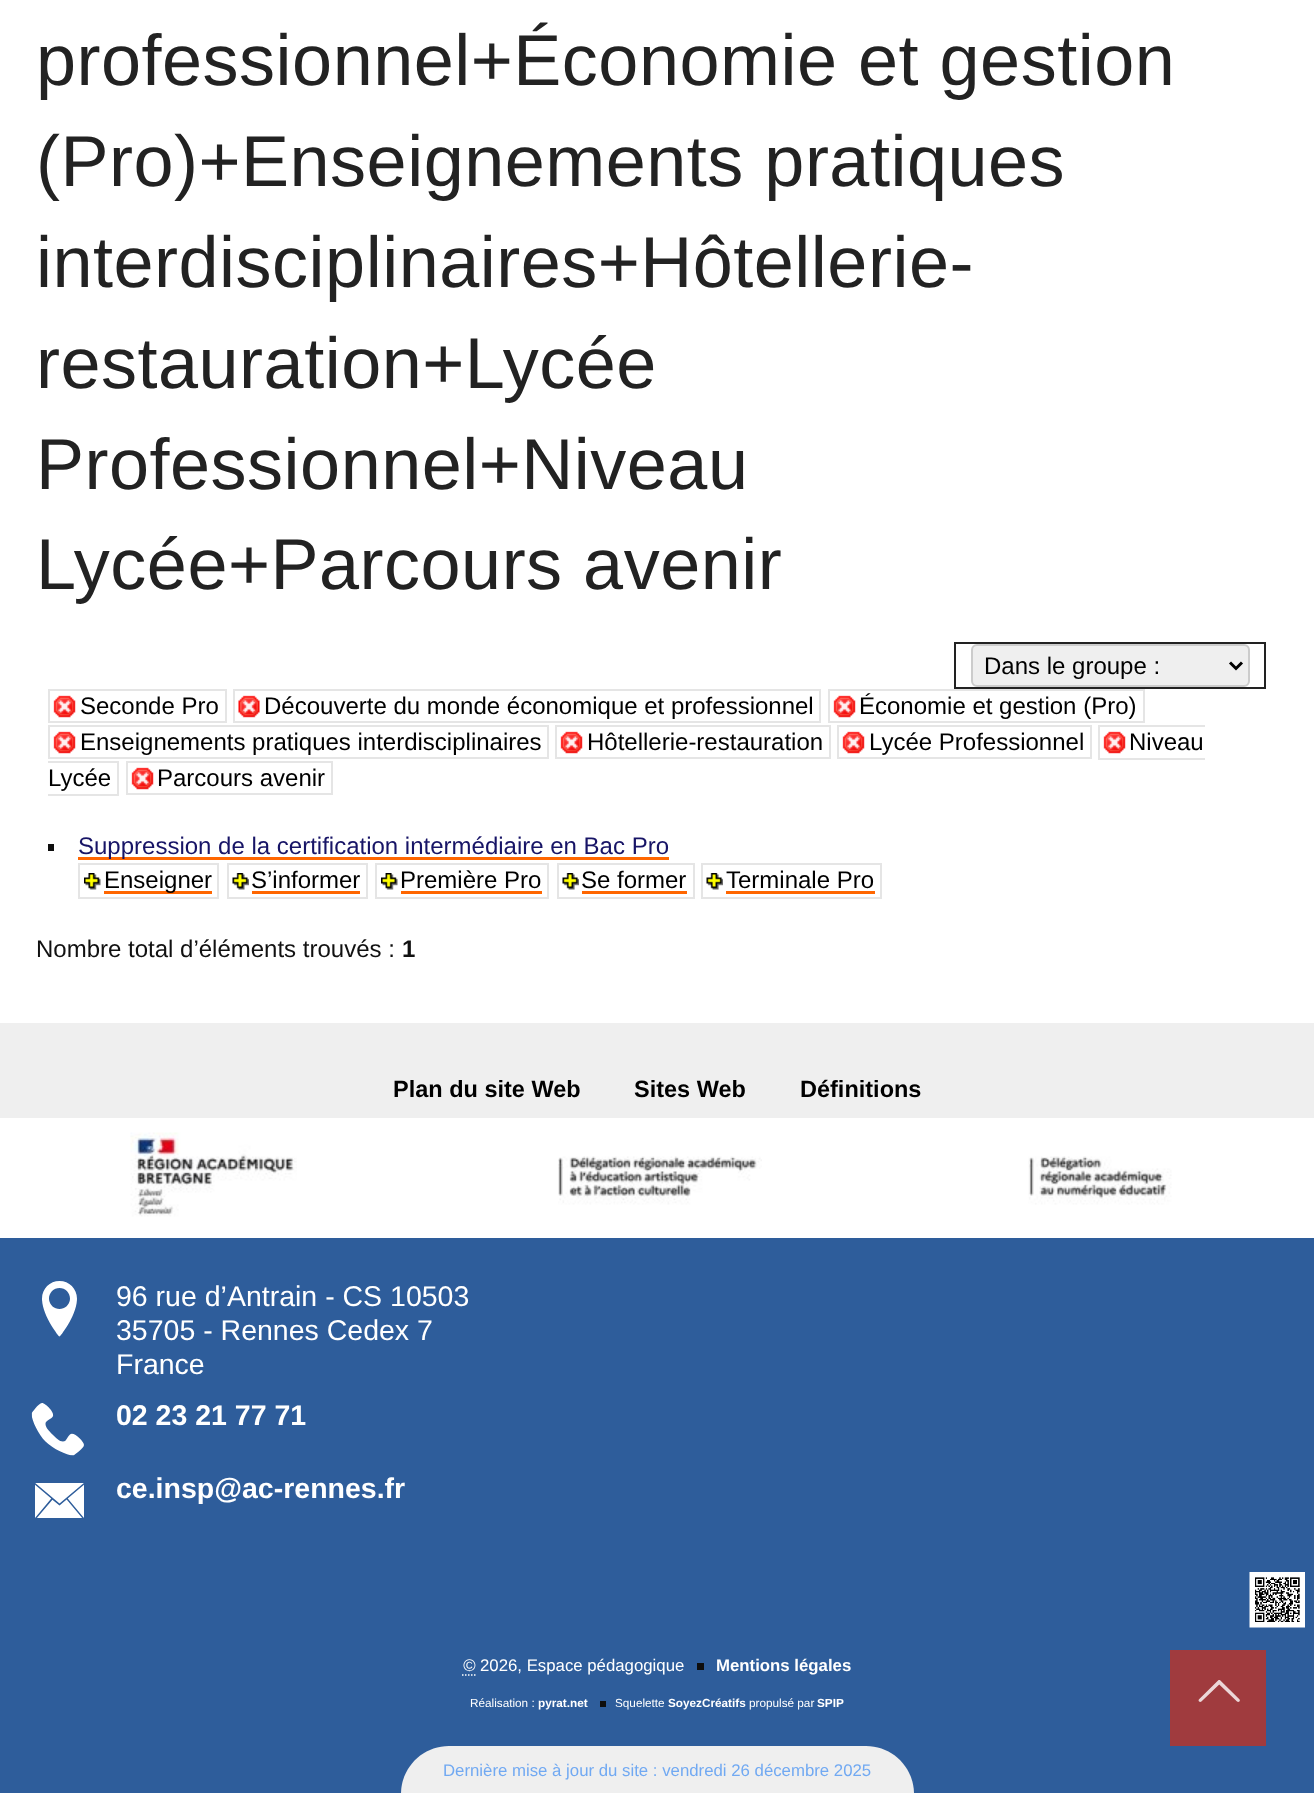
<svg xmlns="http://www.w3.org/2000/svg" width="1314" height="1793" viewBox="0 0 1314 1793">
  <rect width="100%" height="100%" fill="#ffffff"/>
  <text x="36" y="85" font-family="Liberation Sans" font-size="72" letter-spacing="0.5" fill="#222222">professionnel+Économie et gestion</text>
  <text x="36" y="186" font-family="Liberation Sans" font-size="72" letter-spacing="0.5" fill="#222222">(Pro)+Enseignements pratiques</text>
  <text x="36" y="287" font-family="Liberation Sans" font-size="72" letter-spacing="0.5" fill="#222222">interdisciplinaires+Hôtellerie-</text>
  <text x="36" y="388" font-family="Liberation Sans" font-size="72" letter-spacing="0.5" fill="#222222">restauration+Lycée</text>
  <text x="36" y="489" font-family="Liberation Sans" font-size="72" letter-spacing="0.5" fill="#222222">Professionnel+Niveau</text>
  <text x="36" y="589" font-family="Liberation Sans" font-size="72" letter-spacing="0.5" fill="#222222">Lycée+Parcours avenir</text>
  <rect x="955" y="643" width="310" height="45" fill="none" stroke="#222222" stroke-width="2"/>
  <rect x="972" y="645" width="277" height="41" rx="5" fill="#efefef" stroke="#cccccc" stroke-width="2"/>
  <path d="M1230 662.5L1236 668.5L1242 662.5" fill="none" stroke="#000000" stroke-width="3"/>
  <text x="984" y="674" font-family="Liberation Sans" font-size="24" fill="#000000">Dans le groupe :</text>
  <image x="53" y="695" width="23" height="23" href="img1.png"/>
  <rect x="49" y="690" width="177" height="32" fill="none" stroke="#e5e5e5" stroke-width="2"/>
  <text x="80" y="714" font-family="Liberation Sans" font-size="24" fill="#000000">Seconde Pro</text>
  <image x="238" y="695" width="22" height="23" href="img2.png"/>
  <rect x="234" y="690" width="586" height="32" fill="none" stroke="#e5e5e5" stroke-width="2"/>
  <text x="264" y="714" font-family="Liberation Sans" font-size="24" fill="#000000">Découverte du monde économique et professionnel</text>
  <image x="833" y="695" width="23" height="23" href="img1.png"/>
  <rect x="829" y="690" width="315" height="32" fill="none" stroke="#e5e5e5" stroke-width="2"/>
  <text x="859" y="714" font-family="Liberation Sans" font-size="24" fill="#000000">Économie et gestion (Pro)</text>
  <image x="53" y="731" width="23" height="23" href="img1.png"/>
  <rect x="49" y="726" width="499" height="32" fill="none" stroke="#e5e5e5" stroke-width="2"/>
  <text x="80" y="750" font-family="Liberation Sans" font-size="24" fill="#000000">Enseignements pratiques interdisciplinaires</text>
  <image x="560" y="731" width="23" height="23" href="img3.png"/>
  <rect x="556" y="726" width="274" height="32" fill="none" stroke="#e5e5e5" stroke-width="2"/>
  <text x="587" y="750" font-family="Liberation Sans" font-size="24" fill="#000000">Hôtellerie-restauration</text>
  <image x="842" y="731" width="23" height="23" href="img1.png"/>
  <rect x="838" y="726" width="253" height="32" fill="none" stroke="#e5e5e5" stroke-width="2"/>
  <text x="869" y="750" font-family="Liberation Sans" font-size="24" fill="#000000">Lycée Professionnel</text>
  <image x="1103" y="731" width="23" height="23" href="img1.png"/>
  <text x="1129" y="750" font-family="Liberation Sans" font-size="24" fill="#000000">Niveau</text>
  <rect x="1098" y="725" width="107" height="2" fill="#e5e5e5"/>
  <rect x="1098" y="758" width="107" height="2" fill="#e5e5e5"/>
  <rect x="1098" y="725" width="2" height="34" fill="#e5e5e5"/>
  <text x="48" y="786" font-family="Liberation Sans" font-size="24" fill="#000000">Lycée</text>
  <rect x="48" y="761" width="71" height="2" fill="#e5e5e5"/>
  <rect x="117" y="761" width="2" height="34" fill="#e5e5e5"/>
  <rect x="48" y="794" width="71" height="2" fill="#e5e5e5"/>
  <image x="131" y="767" width="23" height="23" href="img1.png"/>
  <rect x="127" y="762" width="205" height="32" fill="none" stroke="#e5e5e5" stroke-width="2"/>
  <text x="157" y="786" font-family="Liberation Sans" font-size="24" fill="#000000">Parcours avenir</text>
  <rect x="48" y="844" width="6" height="7" fill="#0e0e0e"/>
  <rect x="78" y="857" width="591" height="3" fill="#ff6600"/>
  <text x="78" y="854" font-family="Liberation Sans" font-size="24" fill="#171466">Suppression de la certification intermédiaire en Bac Pro</text>
  <image x="84" y="873" width="17" height="17" href="img4.png"/>
  <rect x="79" y="864" width="139" height="34" fill="none" stroke="#e5e5e5" stroke-width="2"/>
  <rect x="104" y="891" width="108" height="3" fill="#ff6600"/>
  <text x="104" y="888" font-family="Liberation Sans" font-size="24" fill="#000000">Enseigner</text>
  <image x="232" y="873" width="17" height="17" href="img5.png"/>
  <rect x="228" y="864" width="139" height="34" fill="none" stroke="#e5e5e5" stroke-width="2"/>
  <text x="251" y="888" font-family="Liberation Sans" font-size="24" fill="#000000">S’informer</text>
  <rect x="252" y="891" width="108" height="3" fill="#ff6600"/>
  <image x="381" y="873" width="17" height="17" href="img6.png"/>
  <rect x="376" y="864" width="172" height="34" fill="none" stroke="#e5e5e5" stroke-width="2"/>
  <text x="400" y="888" font-family="Liberation Sans" font-size="24" fill="#000000">Première Pro</text>
  <rect x="401" y="891" width="141" height="3" fill="#ff6600"/>
  <image x="562" y="873" width="17" height="17" href="img7.png"/>
  <rect x="558" y="864" width="136" height="34" fill="none" stroke="#e5e5e5" stroke-width="2"/>
  <text x="581" y="888" font-family="Liberation Sans" font-size="24" fill="#000000">Se former</text>
  <rect x="582" y="891" width="105" height="3" fill="#ff6600"/>
  <image x="706" y="873" width="17" height="17" href="img7.png"/>
  <rect x="702" y="864" width="179" height="34" fill="none" stroke="#e5e5e5" stroke-width="2"/>
  <text x="726" y="888" font-family="Liberation Sans" font-size="24" fill="#000000">Terminale Pro</text>
  <rect x="726" y="891" width="149" height="3" fill="#ff6600"/>
  <text x="36" y="957" font-family="Liberation Sans" font-size="24" fill="#111111">Nombre total d’éléments trouvés :</text>
  <text x="402" y="957" font-family="Liberation Sans" font-size="24" font-weight="bold" fill="#111111">1</text>
  <rect x="0" y="1023" width="1314" height="95" fill="#efefef"/>
  <rect x="0" y="1238" width="1314" height="555" fill="#2e5d9b"/>
  <text x="393" y="1097" font-family="Liberation Sans" font-size="23.5" font-weight="bold" fill="#000000">Plan du site Web</text>
  <text x="634" y="1097" font-family="Liberation Sans" font-size="23.5" font-weight="bold" fill="#000000">Sites Web</text>
  <text x="800" y="1097" font-family="Liberation Sans" font-size="23.5" font-weight="bold" fill="#000000">Définitions</text>
  <image x="130" y="1132" width="167" height="85" href="img8.png"/>
  <image x="558" y="1156" width="204" height="49" href="img9.png"/>
  <image x="1028" y="1156" width="144" height="49" href="img10.png"/>
  <image x="42" y="1281" width="35" height="56" href="img11.png"/>
  <text x="116" y="1306" font-family="Liberation Sans" font-size="28.5" fill="#ffffff">96 rue d’Antrain - CS 10503</text>
  <text x="116" y="1340" font-family="Liberation Sans" font-size="28.5" fill="#ffffff">35705 - Rennes Cedex 7</text>
  <text x="116" y="1374" font-family="Liberation Sans" font-size="28.5" fill="#ffffff">France</text>
  <image x="31" y="1403" width="53" height="53" href="img12.png"/>
  <text x="116" y="1425" font-family="Liberation Sans" font-size="28.5" font-weight="bold" fill="#ffffff">02 23 21 77 71</text>
  <image x="35" y="1483" width="49" height="35" href="img13.png"/>
  <text x="116" y="1498" font-family="Liberation Sans" font-size="28.5" font-weight="bold" fill="#ffffff">ce.insp@ac-rennes.fr</text>
  <image x="1249" y="1572" width="56" height="56" href="img14.png"/>
  <text x="463" y="1671" font-family="Liberation Sans" font-size="16.8" font-style="italic" fill="#ffffff">©</text>
  <path d="M462 1675H475.5" fill="none" stroke="#ffffff" stroke-width="1.5" stroke-dasharray="1.5 1.5"/>
  <text x="480" y="1671" font-family="Liberation Sans" font-size="16.8" fill="#ffffff">2026, Espace pédagogique</text>
  <rect x="697" y="1663" width="7" height="7" fill="#0e0e0e"/>
  <text x="716" y="1671" font-family="Liberation Sans" font-size="16.8" font-weight="bold" fill="#ffffff">Mentions légales</text>
  <text x="470" y="1707" font-family="Liberation Sans" font-size="11.75" fill="#ffffff">Réalisation :</text>
  <text x="538" y="1707" font-family="Liberation Sans" font-size="11.75" font-weight="bold" fill="#ffffff">pyrat.net</text>
  <rect x="600" y="1701" width="6" height="6" fill="#0e0e0e"/>
  <text x="615" y="1707" font-family="Liberation Sans" font-size="11.75" fill="#ffffff">Squelette</text>
  <text x="668" y="1707" font-family="Liberation Sans" font-size="11.75" font-weight="bold" fill="#ffffff">SoyezCréatifs</text>
  <text x="749" y="1707" font-family="Liberation Sans" font-size="11.75" fill="#ffffff">propulsé par</text>
  <text x="817" y="1707" font-family="Liberation Sans" font-size="11.75" font-weight="bold" fill="#ffffff">SPIP</text>
  <path d="M449 1746H866C892.5 1746 914 1767.5 914 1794H401C401 1767.5 422.5 1746 449 1746Z" fill="#efefef"/>
  <text x="443" y="1776" font-family="Liberation Sans" font-size="16.8" fill="#71a9f2">Dernière mise à jour du site : vendredi 26 décembre 2025</text>
  <rect x="1170" y="1650" width="96" height="96" fill="#a03b3e"/>
  <image x="1198" y="1680" width="42" height="22" href="img15.png"/>
</svg>
